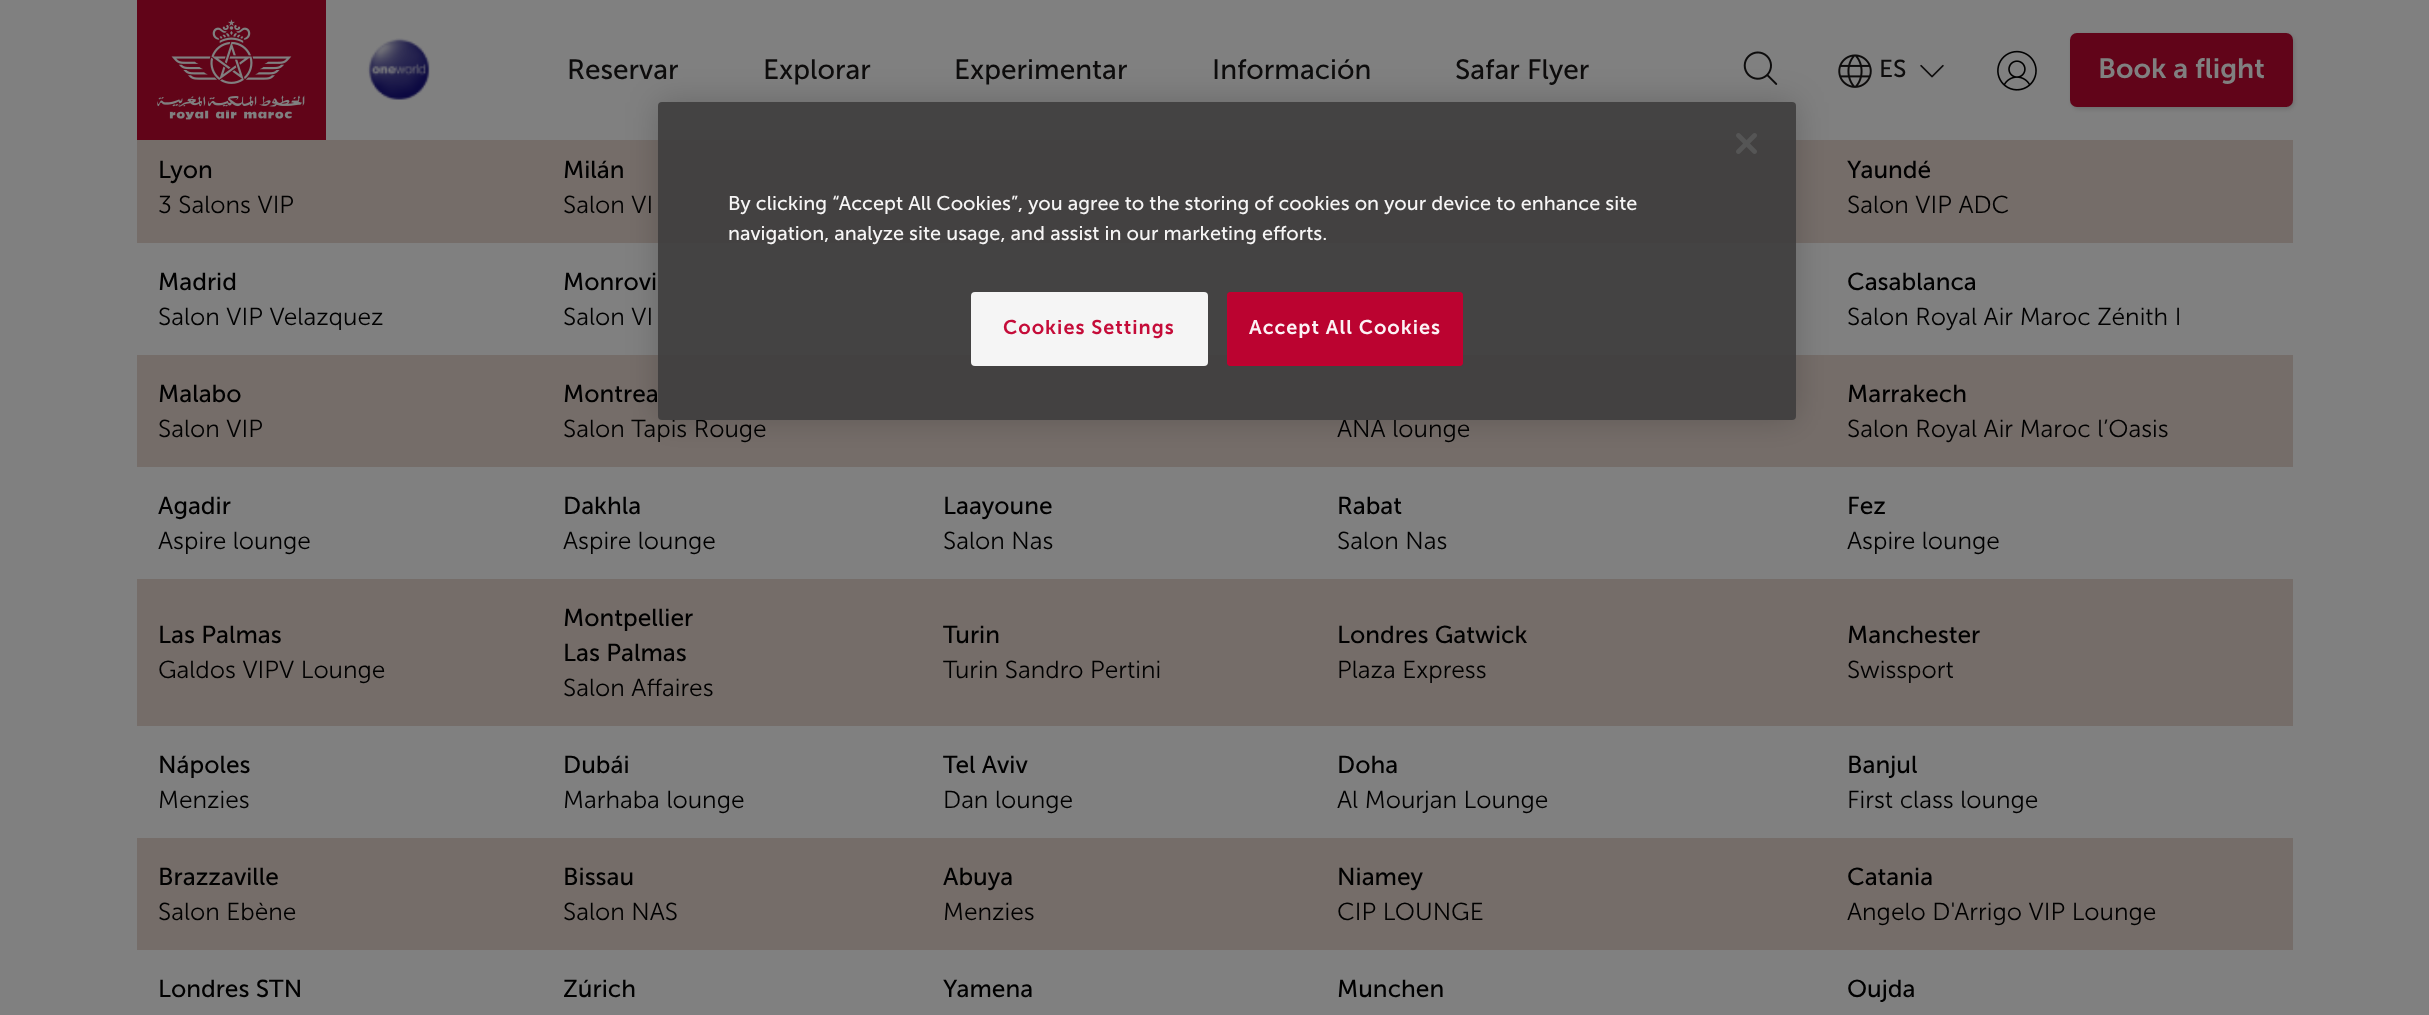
<svg xmlns="http://www.w3.org/2000/svg" width="2429" height="1015" viewBox="0 0 2429 1015">
  <defs>
    <filter id="blur1" x="-50%" y="-200%" width="200%" height="500%"><feGaussianBlur stdDeviation="2"/></filter>
    <clipPath id="clip1"><path d="M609 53H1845V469H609ZM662 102H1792C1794 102 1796 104 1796 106V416C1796 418 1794 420 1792 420H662C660 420 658 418 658 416V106C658 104 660 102 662 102Z" clip-rule="evenodd"/></clipPath>
    <filter id="blur2" x="-50%" y="-200%" width="200%" height="500%"><feGaussianBlur stdDeviation="16"/></filter>
  </defs>
  <rect width="100%" height="100%" fill="#808080"/>
  <image x="137" y="0" width="189" height="140" href="img1.png"/>
  <image x="367" y="38" width="63" height="62" href="img2.png"/>
  <text x="567" y="79" font-family="Museo Sans" font-size="28" fill="#0d0c0c">Reservar</text>
  <text x="763" y="79" font-family="Museo Sans" font-size="28" fill="#0d0c0c">Explorar</text>
  <text x="954" y="79" font-family="Museo Sans" font-size="28" fill="#0d0c0c">Experimentar</text>
  <text x="1212" y="79" font-family="Museo Sans" font-size="28" fill="#0d0c0c">Información</text>
  <text x="1455" y="79" font-family="Museo Sans" font-size="28" fill="#0d0c0c">Safar Flyer</text>
  <image x="1743" y="51" width="35" height="34" href="img3.png"/>
  <image x="1838" y="54" width="34" height="34" href="img4.png"/>
  <text x="1879" y="77" font-family="Museo Sans" font-size="24.5" fill="#0d0c0c">ES</text>
  <image x="1920" y="64" width="24" height="14" href="img5.png"/>
  <image x="1997" y="50" width="40" height="41" href="img6.png"/>
  <rect x="2072" y="35" width="222" height="74" rx="7" fill="#000000" fill-opacity="0.15" filter="url(#blur1)"/>
  <rect x="2070" y="33" width="223" height="74" rx="7" fill="#610419"/>
  <text x="2098" y="78" font-family="Museo Sans" font-size="28" font-weight="600" fill="#808080">Book a flight</text>
  <rect x="137" y="140" width="2156" height="103" fill="#756d69"/>
  <text x="158" y="178" font-family="Museo Sans" font-size="24.5" fill="#000000">Lyon</text>
  <text x="158" y="213" font-family="Museo Sans" font-size="24.5" font-weight="300" fill="#000000">3 Salons VIP</text>
  <text x="563" y="178" font-family="Museo Sans" font-size="24.5" fill="#000000">Milán</text>
  <text x="563" y="213" font-family="Museo Sans" font-size="24.5" font-weight="300" fill="#000000">Salon VI</text>
  <text x="1847" y="178" font-family="Museo Sans" font-size="24.5" fill="#000000">Yaundé</text>
  <text x="1847" y="213" font-family="Museo Sans" font-size="24.5" font-weight="300" fill="#000000">Salon VIP ADC</text>
  <text x="158" y="290" font-family="Museo Sans" font-size="24.5" fill="#000000">Madrid</text>
  <text x="158" y="325" font-family="Museo Sans" font-size="24.5" font-weight="300" fill="#000000">Salon VIP Velazquez</text>
  <text x="563" y="290" font-family="Museo Sans" font-size="24.5" fill="#000000">Monrovi</text>
  <text x="563" y="325" font-family="Museo Sans" font-size="24.5" font-weight="300" fill="#000000">Salon VI</text>
  <text x="1847" y="290" font-family="Museo Sans" font-size="24.5" fill="#000000">Casablanca</text>
  <text x="1847" y="325" font-family="Museo Sans" font-size="24.5" font-weight="300" fill="#000000">Salon Royal Air Maroc Zénith I</text>
  <rect x="137" y="355" width="2156" height="112" fill="#756d69"/>
  <text x="158" y="402" font-family="Museo Sans" font-size="24.5" fill="#000000">Malabo</text>
  <text x="158" y="437" font-family="Museo Sans" font-size="24.5" font-weight="300" fill="#000000">Salon VIP</text>
  <text x="563" y="402" font-family="Museo Sans" font-size="24.5" fill="#000000">Montrea</text>
  <text x="563" y="437" font-family="Museo Sans" font-size="24.5" font-weight="300" fill="#000000">Salon Tapis Rouge</text>
  <text x="1337" y="437" font-family="Museo Sans" font-size="24.5" font-weight="300" fill="#000000">ANA lounge</text>
  <text x="1847" y="402" font-family="Museo Sans" font-size="24.5" fill="#000000">Marrakech</text>
  <text x="1847" y="437" font-family="Museo Sans" font-size="24.5" font-weight="300" fill="#000000">Salon Royal Air Maroc l’Oasis</text>
  <text x="158" y="514" font-family="Museo Sans" font-size="24.5" fill="#000000">Agadir</text>
  <text x="158" y="549" font-family="Museo Sans" font-size="24.5" font-weight="300" fill="#000000">Aspire lounge</text>
  <text x="563" y="514" font-family="Museo Sans" font-size="24.5" fill="#000000">Dakhla</text>
  <text x="563" y="549" font-family="Museo Sans" font-size="24.5" font-weight="300" fill="#000000">Aspire lounge</text>
  <text x="943" y="514" font-family="Museo Sans" font-size="24.5" fill="#000000">Laayoune</text>
  <text x="943" y="549" font-family="Museo Sans" font-size="24.5" font-weight="300" fill="#000000">Salon Nas</text>
  <text x="1337" y="514" font-family="Museo Sans" font-size="24.5" fill="#000000">Rabat</text>
  <text x="1337" y="549" font-family="Museo Sans" font-size="24.5" font-weight="300" fill="#000000">Salon Nas</text>
  <text x="1847" y="514" font-family="Museo Sans" font-size="24.5" fill="#000000">Fez</text>
  <text x="1847" y="549" font-family="Museo Sans" font-size="24.5" font-weight="300" fill="#000000">Aspire lounge</text>
  <rect x="137" y="579" width="2156" height="147" fill="#756d69"/>
  <text x="158" y="643" font-family="Museo Sans" font-size="24.5" fill="#000000">Las Palmas</text>
  <text x="158" y="678" font-family="Museo Sans" font-size="24.5" font-weight="300" fill="#000000">Galdos VIPV Lounge</text>
  <text x="563" y="626" font-family="Museo Sans" font-size="24.5" fill="#000000">Montpellier</text>
  <text x="563" y="661" font-family="Museo Sans" font-size="24.5" fill="#000000">Las Palmas</text>
  <text x="563" y="696" font-family="Museo Sans" font-size="24.5" font-weight="300" fill="#000000">Salon Affaires</text>
  <text x="943" y="643" font-family="Museo Sans" font-size="24.5" fill="#000000">Turin</text>
  <text x="943" y="678" font-family="Museo Sans" font-size="24.5" font-weight="300" fill="#000000">Turin Sandro Pertini</text>
  <text x="1337" y="643" font-family="Museo Sans" font-size="24.5" fill="#000000">Londres Gatwick</text>
  <text x="1337" y="678" font-family="Museo Sans" font-size="24.5" font-weight="300" fill="#000000">Plaza Express</text>
  <text x="1847" y="643" font-family="Museo Sans" font-size="24.5" fill="#000000">Manchester</text>
  <text x="1847" y="678" font-family="Museo Sans" font-size="24.5" font-weight="300" fill="#000000">Swissport</text>
  <text x="158" y="773" font-family="Museo Sans" font-size="24.5" fill="#000000">Nápoles</text>
  <text x="158" y="808" font-family="Museo Sans" font-size="24.5" font-weight="300" fill="#000000">Menzies</text>
  <text x="563" y="773" font-family="Museo Sans" font-size="24.5" fill="#000000">Dubái</text>
  <text x="563" y="808" font-family="Museo Sans" font-size="24.5" font-weight="300" fill="#000000">Marhaba lounge</text>
  <text x="943" y="773" font-family="Museo Sans" font-size="24.5" fill="#000000">Tel Aviv</text>
  <text x="943" y="808" font-family="Museo Sans" font-size="24.5" font-weight="300" fill="#000000">Dan lounge</text>
  <text x="1337" y="773" font-family="Museo Sans" font-size="24.5" fill="#000000">Doha</text>
  <text x="1337" y="808" font-family="Museo Sans" font-size="24.5" font-weight="300" fill="#000000">Al Mourjan Lounge</text>
  <text x="1847" y="773" font-family="Museo Sans" font-size="24.5" fill="#000000">Banjul</text>
  <text x="1847" y="808" font-family="Museo Sans" font-size="24.5" font-weight="300" fill="#000000">First class lounge</text>
  <rect x="137" y="838" width="2156" height="112" fill="#756d69"/>
  <text x="158" y="885" font-family="Museo Sans" font-size="24.5" fill="#000000">Brazzaville</text>
  <text x="158" y="920" font-family="Museo Sans" font-size="24.5" font-weight="300" fill="#000000">Salon Ebène</text>
  <text x="563" y="885" font-family="Museo Sans" font-size="24.5" fill="#000000">Bissau</text>
  <text x="563" y="920" font-family="Museo Sans" font-size="24.5" font-weight="300" fill="#000000">Salon NAS</text>
  <text x="943" y="885" font-family="Museo Sans" font-size="24.5" fill="#000000">Abuya</text>
  <text x="943" y="920" font-family="Museo Sans" font-size="24.5" font-weight="300" fill="#000000">Menzies</text>
  <text x="1337" y="885" font-family="Museo Sans" font-size="24.5" fill="#000000">Niamey</text>
  <text x="1337" y="920" font-family="Museo Sans" font-size="24.5" font-weight="300" fill="#000000">CIP LOUNGE</text>
  <text x="1847" y="885" font-family="Museo Sans" font-size="24.5" fill="#000000">Catania</text>
  <text x="1847" y="920" font-family="Museo Sans" font-size="24.5" font-weight="300" fill="#000000">Angelo D'Arrigo VIP Lounge</text>
  <text x="158" y="997" font-family="Museo Sans" font-size="24.5" fill="#000000">Londres STN</text>
  <text x="563" y="997" font-family="Museo Sans" font-size="24.5" fill="#000000">Zúrich</text>
  <text x="943" y="997" font-family="Museo Sans" font-size="24.5" fill="#000000">Yamena</text>
  <text x="1337" y="997" font-family="Museo Sans" font-size="24.5" fill="#000000">Munchen</text>
  <text x="1847" y="997" font-family="Museo Sans" font-size="24.5" fill="#000000">Oujda</text>
  <g clip-path="url(#clip1)">
    <rect x="658" y="102" width="1138" height="318" rx="4" fill="#000000" fill-opacity="0.19" filter="url(#blur2)"/>
  </g>
  <rect x="658" y="102" width="1138" height="318" rx="4" fill="#403f3f" fill-opacity="0.95"/>
  <image x="1736" y="133" width="21" height="21" href="img7.png"/>
  <text x="728" y="210" font-family="Museo Sans" font-size="19.9" fill="#f6f5f5">By clicking “Accept All Cookies”, you agree to the storing of cookies on your device to enhance site</text>
  <text x="728" y="240" font-family="Museo Sans" font-size="19.9" fill="#f6f5f5">navigation, analyze site usage, and assist in our marketing efforts.</text>
  <rect x="971" y="292" width="237" height="74" rx="4" fill="#ffffff" fill-opacity="0.95"/>
  <text x="1003" y="334" font-family="Museo Sans" font-size="19.9" font-weight="600" letter-spacing="1" fill="#c50c39">Cookies Settings</text>
  <rect x="1227" y="292" width="236" height="74" rx="4" fill="#c2002f" fill-opacity="0.95"/>
  <rect x="1228" y="293" width="234" height="72" rx="3" fill="none" stroke="#c2002f" stroke-opacity="0.95" stroke-width="2"/>
  <text x="1249" y="334" font-family="Museo Sans" font-size="19.9" font-weight="600" letter-spacing="1" fill="#fcf2f5">Accept All Cookies</text>
</svg>
